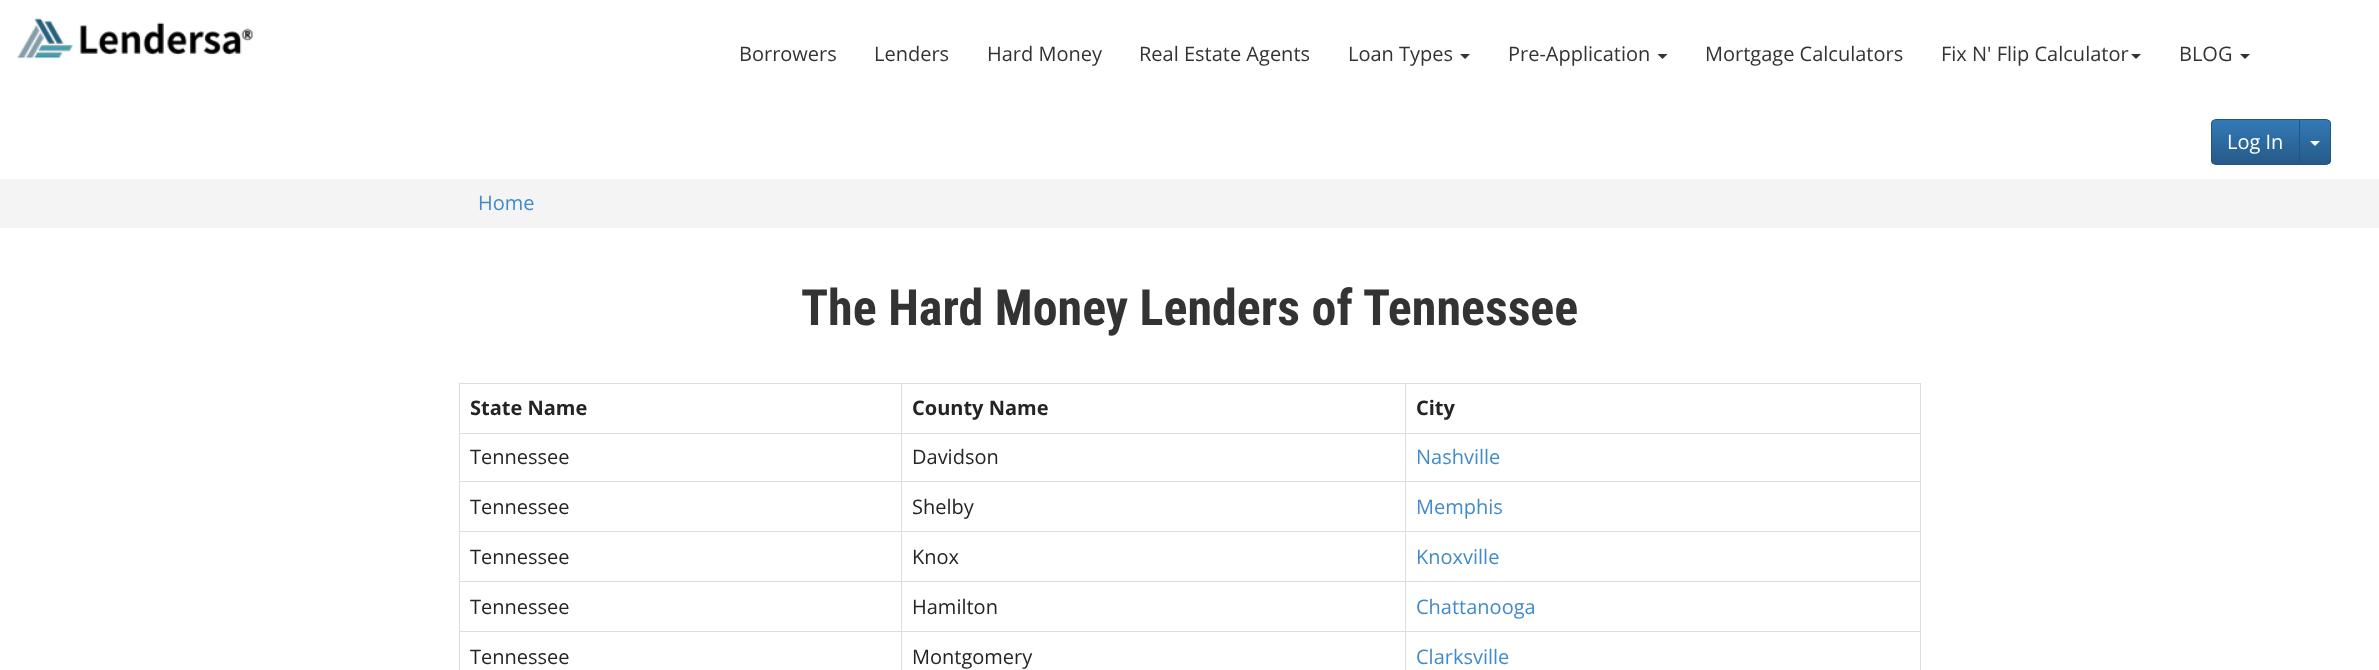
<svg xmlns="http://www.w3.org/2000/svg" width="2379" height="670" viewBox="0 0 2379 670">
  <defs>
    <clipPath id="clip1"><path d="M2216 119H2300V165H2216C2213 165 2211 163 2211 160V124C2211 121 2213 119 2216 119Z"/></clipPath>
    <linearGradient id="g1" gradientUnits="userSpaceOnUse" x1="2256" y1="120" x2="2256" y2="164"><stop offset="0" stop-color="#337ab7"/><stop offset="1" stop-color="#265a88"/></linearGradient>
    <clipPath id="clip2"><path d="M2299 119H2326C2329 119 2331 121 2331 124V160C2331 163 2329 165 2326 165H2299Z"/></clipPath>
    <linearGradient id="g2" gradientUnits="userSpaceOnUse" x1="2315" y1="120" x2="2315" y2="164"><stop offset="0" stop-color="#337ab7"/><stop offset="1" stop-color="#265a88"/></linearGradient>
  </defs>
  <rect width="100%" height="100%" fill="#ffffff"/>
  <image x="17" y="18" width="236" height="41" href="img1.png"/>
  <text x="739" y="61" font-family="Open Sans" font-size="20" fill="#333333">Borrowers</text>
  <text x="874" y="61" font-family="Open Sans" font-size="20" fill="#333333">Lenders</text>
  <text x="987" y="61" font-family="Open Sans" font-size="20" fill="#333333">Hard Money</text>
  <text x="1139" y="61" font-family="Open Sans" font-size="20" fill="#333333">Real Estate Agents</text>
  <text x="1348" y="61" font-family="Open Sans" font-size="20" fill="#333333">Loan Types</text>
  <path d="M1460 54H1470L1465 59Z" fill="#333333"/>
  <text x="1508" y="61" font-family="Open Sans" font-size="20" fill="#333333">Pre-Application</text>
  <path d="M1657.5 54H1667.5L1662.5 59Z" fill="#333333"/>
  <text x="1705" y="61" font-family="Open Sans" font-size="20" fill="#333333">Mortgage Calculators</text>
  <text x="1941" y="61" font-family="Open Sans" font-size="20" fill="#333333">Fix N' Flip Calculator</text>
  <path d="M2131 54H2141L2136 59Z" fill="#333333"/>
  <text x="2179" y="61" font-family="Open Sans" font-size="20" fill="#333333">BLOG</text>
  <path d="M2240 54H2250L2245 59Z" fill="#333333"/>
  <g clip-path="url(#clip1)">
    <rect x="2211" y="120" width="88" height="44" fill="url(#g1)"/>
  </g>
  <path d="M2216 119.5H2299.5V164.5H2216C2213.5 164.5 2211.5 162.5 2211.5 160V124C2211.5 121.5 2213.5 119.5 2216 119.5Z" fill="none" stroke="#245580"/>
  <text x="2227" y="149" font-family="Open Sans" font-size="20" fill="#ffffff">Log In</text>
  <g clip-path="url(#clip2)">
    <rect x="2300" y="120" width="31" height="44" fill="url(#g2)"/>
  </g>
  <path d="M2299.5 119.5H2326C2328.5 119.5 2330.5 121.5 2330.5 124V160C2330.5 162.5 2328.5 164.5 2326 164.5H2299.5Z" fill="none" stroke="#245580"/>
  <path d="M2310 141H2320L2315 146Z" fill="#ffffff"/>
  <rect x="0" y="179" width="2379" height="49" fill="#f4f4f4"/>
  <text x="478" y="210" font-family="Open Sans" font-size="20" fill="#428bca">Home</text>
  <text x="801" y="325" font-family="Roboto Condensed" font-size="50" font-weight="bold" fill="#333333">The Hard Money Lenders of Tennessee</text>
  <rect x="459" y="383" width="1462" height="1" fill="#dddddd"/>
  <rect x="1920" y="383" width="1" height="287" fill="#dddddd"/>
  <rect x="459" y="383" width="1" height="287" fill="#dddddd"/>
  <text x="470" y="415" font-family="Open Sans" font-size="20" font-weight="bold" fill="#242424">State Name</text>
  <rect x="1405" y="433" width="516" height="1" fill="#dddddd"/>
  <rect x="1405" y="481" width="516" height="1" fill="#dddddd"/>
  <rect x="1405" y="531" width="516" height="1" fill="#dddddd"/>
  <rect x="1405" y="581" width="516" height="1" fill="#dddddd"/>
  <rect x="1405" y="631" width="516" height="1" fill="#dddddd"/>
  <rect x="1405" y="631" width="1" height="39" fill="#dddddd"/>
  <rect x="901" y="631" width="505" height="1" fill="#dddddd"/>
  <rect x="1405" y="581" width="1" height="52" fill="#dddddd"/>
  <rect x="901" y="581" width="505" height="1" fill="#dddddd"/>
  <rect x="1405" y="531" width="1" height="52" fill="#dddddd"/>
  <rect x="901" y="531" width="505" height="1" fill="#dddddd"/>
  <rect x="1405" y="481" width="1" height="52" fill="#dddddd"/>
  <rect x="901" y="481" width="505" height="1" fill="#dddddd"/>
  <rect x="1405" y="433" width="1" height="50" fill="#dddddd"/>
  <rect x="901" y="433" width="505" height="1" fill="#dddddd"/>
  <rect x="901" y="631" width="1" height="39" fill="#dddddd"/>
  <rect x="459" y="631" width="444" height="1" fill="#dddddd"/>
  <rect x="901" y="581" width="1" height="52" fill="#dddddd"/>
  <rect x="459" y="581" width="444" height="1" fill="#dddddd"/>
  <rect x="901" y="531" width="1" height="52" fill="#dddddd"/>
  <rect x="459" y="531" width="444" height="1" fill="#dddddd"/>
  <rect x="901" y="481" width="1" height="52" fill="#dddddd"/>
  <rect x="459" y="481" width="444" height="1" fill="#dddddd"/>
  <rect x="901" y="433" width="1" height="50" fill="#dddddd"/>
  <rect x="459" y="433" width="444" height="1" fill="#dddddd"/>
  <rect x="901" y="383" width="1" height="51" fill="#dddddd"/>
  <text x="912" y="415" font-family="Open Sans" font-size="20" font-weight="bold" fill="#242424">County Name</text>
  <rect x="1405" y="383" width="1" height="51" fill="#dddddd"/>
  <text x="1416" y="415" font-family="Open Sans" font-size="20" font-weight="bold" fill="#242424">City</text>
  <text x="470" y="464" font-family="Open Sans" font-size="20" fill="#242424">Tennessee</text>
  <text x="912" y="464" font-family="Open Sans" font-size="20" fill="#242424">Davidson</text>
  <text x="1416" y="464" font-family="Open Sans" font-size="20" fill="#428bca">Nashville</text>
  <text x="470" y="514" font-family="Open Sans" font-size="20" fill="#242424">Tennessee</text>
  <text x="912" y="514" font-family="Open Sans" font-size="20" fill="#242424">Shelby</text>
  <text x="1416" y="514" font-family="Open Sans" font-size="20" fill="#428bca">Memphis</text>
  <text x="470" y="564" font-family="Open Sans" font-size="20" fill="#242424">Tennessee</text>
  <text x="912" y="564" font-family="Open Sans" font-size="20" fill="#242424">Knox</text>
  <text x="1416" y="564" font-family="Open Sans" font-size="20" fill="#428bca">Knoxville</text>
  <text x="470" y="614" font-family="Open Sans" font-size="20" fill="#242424">Tennessee</text>
  <text x="912" y="614" font-family="Open Sans" font-size="20" fill="#242424">Hamilton</text>
  <text x="1416" y="614" font-family="Open Sans" font-size="20" fill="#428bca">Chattanooga</text>
  <text x="470" y="664" font-family="Open Sans" font-size="20" fill="#242424">Tennessee</text>
  <text x="912" y="664" font-family="Open Sans" font-size="20" fill="#242424">Montgomery</text>
  <text x="1416" y="664" font-family="Open Sans" font-size="20" fill="#428bca">Clarksville</text>
</svg>
